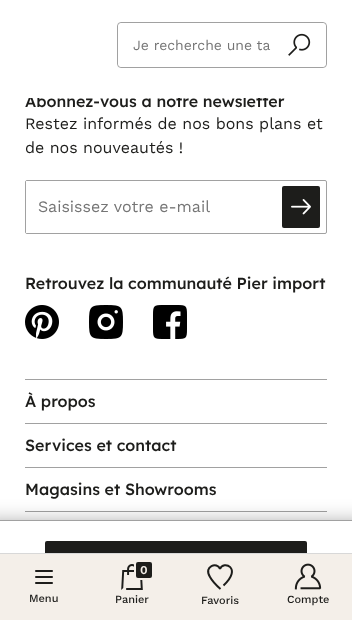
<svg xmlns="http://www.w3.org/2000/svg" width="352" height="620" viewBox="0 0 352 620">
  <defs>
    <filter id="blur1" x="-50%" y="-200%" width="200%" height="500%"><feGaussianBlur stdDeviation="15"/></filter>
  </defs>
  <rect width="100%" height="100%" fill="#ffffff"/>
  <text x="25" y="107" font-family="Lexend" font-size="16" font-weight="500" fill="#1d1d1b">Abonnez-vous à notre newsletter</text>
  <rect x="28" y="94" width="239" height="4" fill="#ffffff"/>
  <rect x="117.5" y="22.5" width="209" height="45" rx="3.5" fill="none" stroke="#a1a1a1"/>
  <path d="M122 23H272V67H122C120 67 118 65 118 63V27C118 25 120 23 122 23Z" fill="#ffffff"/>
  <text x="133" y="50" font-family="Work Sans" font-size="14" fill="#757575">Je recherche une ta</text>
  <path d="M272 23H322C324 23 326 25 326 27V63C326 65 324 67 322 67H272Z" fill="#ffffff"/>
  <image x="288" y="33" width="23" height="23" href="img1.png"/>
  <text x="25" y="129" font-family="Work Sans" font-size="16" fill="#1d1d1b">Restez informés de nos bons plans et</text>
  <text x="25" y="153" font-family="Work Sans" font-size="16" fill="#1d1d1b">de nos nouveautés !</text>
  <rect x="25.5" y="180.5" width="301" height="53" rx="1.5" fill="none" stroke="#a1a1a1"/>
  <rect x="26" y="181" width="1" height="52" fill="#ffffff"/>
  <text x="38" y="212" font-family="Work Sans" font-size="16" fill="#757575">Saisissez votre e-mail</text>
  <rect x="282" y="186" width="38" height="42" rx="2" fill="#1d1d1b"/>
  <image x="291" y="199" width="20" height="16" href="img2.png"/>
  <text x="25" y="289" font-family="Lexend" font-size="16" font-weight="500" fill="#1d1d1b">Retrouvez la communauté Pier import</text>
  <image x="25" y="305" width="34" height="34" href="img3.png"/>
  <image x="89" y="305" width="34" height="34" href="img4.png"/>
  <image x="153" y="305" width="34" height="34" href="img5.png"/>
  <rect x="25" y="379" width="302" height="1" fill="#a1a1a1"/>
  <rect x="25" y="423" width="302" height="1" fill="#a1a1a1"/>
  <text x="25" y="407" font-family="Lexend" font-size="16" font-weight="500" fill="#1d1d1b">À propos</text>
  <rect x="25" y="467" width="302" height="1" fill="#a1a1a1"/>
  <text x="25" y="451" font-family="Lexend" font-size="16" font-weight="500" fill="#1d1d1b">Services et contact</text>
  <rect x="25" y="511" width="302" height="1" fill="#a1a1a1"/>
  <text x="25" y="495" font-family="Lexend" font-size="16" font-weight="500" fill="#1d1d1b">Magasins et Showrooms</text>
  <rect x="-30" y="535" width="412" height="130" fill="#1d1d1b" filter="url(#blur1)"/>
  <rect x="0" y="521" width="352" height="32" fill="#ffffff"/>
  <rect x="0" y="520" width="352" height="1" fill="#a1a1a1"/>
  <rect x="45" y="541" width="262" height="73" rx="2" fill="#1d1d1b"/>
  <rect x="0" y="554" width="352" height="66" fill="#f4efe9"/>
  <rect x="0" y="553" width="352" height="1" fill="#d8d8d8"/>
  <image x="35" y="570" width="18" height="14" href="img6.png"/>
  <text x="29" y="602" font-family="Work Sans" font-size="11" font-weight="500" fill="#1d1d1b">Menu</text>
  <image x="121" y="564" width="22" height="26" href="img7.png"/>
  <rect x="135" y="561" width="18" height="18" rx="3" fill="#1d1d1b" stroke="#f4efe9" stroke-width="2"/>
  <text x="140" y="574" font-family="Work Sans" font-size="12" font-weight="600" fill="#f4efe9">0</text>
  <text x="115" y="603" font-family="Work Sans" font-size="11" font-weight="500" fill="#1d1d1b">Panier</text>
  <path d="M223.5 585.5C243 567.5 223 560 220 569C217.5 561.5 203 566 210 577C212.5 581.5 216.5 585.5 220.5 589" fill="none" stroke="#1d1d1b" stroke-width="2" stroke-linejoin="bevel"/>
  <text x="201" y="604" font-family="Work Sans" font-size="11" font-weight="500" fill="#1d1d1b">Favoris</text>
  <image x="294" y="563" width="28" height="27" href="img8.png"/>
  <text x="287" y="603" font-family="Work Sans" font-size="11" font-weight="500" fill="#1d1d1b">Compte</text>
</svg>
